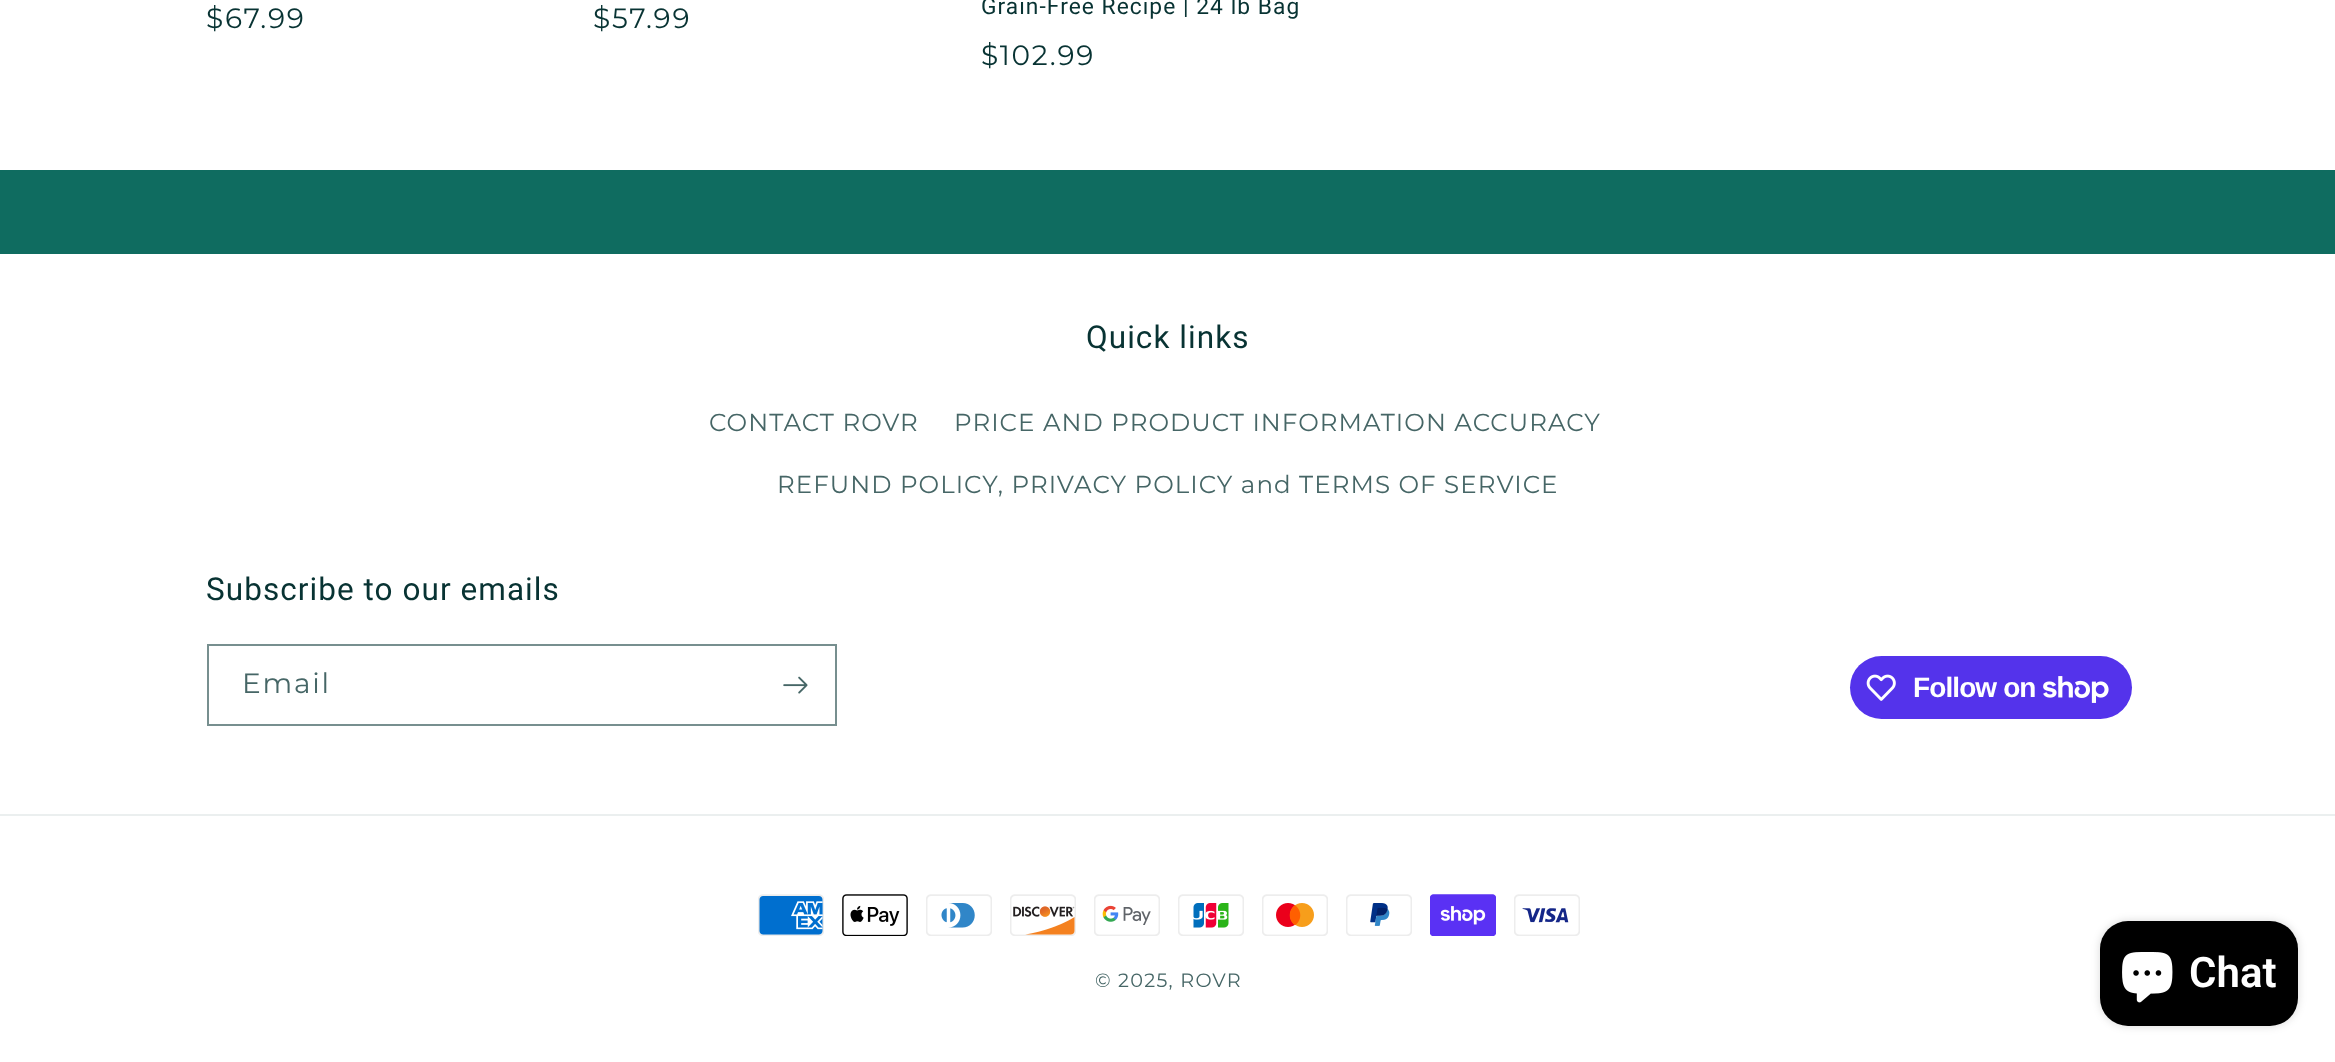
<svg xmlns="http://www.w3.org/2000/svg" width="2335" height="1062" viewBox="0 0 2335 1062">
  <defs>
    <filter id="blur1" x="-50%" y="-200%" width="200%" height="500%"><feGaussianBlur stdDeviation="4.5"/></filter>
  </defs>
  <rect width="100%" height="100%" fill="#0f6c60"/>
  <rect x="0" y="0" width="2335" height="170" fill="#ffffff"/>
  <text x="206" y="28" font-family="Montserrat" font-size="28" letter-spacing="1.75" fill="#083333">$67.99</text>
  <text x="593" y="28" font-family="Montserrat" font-size="28" letter-spacing="1.75" fill="#083333">$57.99</text>
  <text x="981" y="14" font-family="Roboto" font-size="22.75" letter-spacing="1.05" fill="#083333">Grain-Free Recipe | 24 lb Bag</text>
  <text x="981" y="65" font-family="Montserrat" font-size="28" letter-spacing="1.75" fill="#083333">$102.99</text>
  <rect x="0" y="254" width="2335" height="808" fill="#ffffff"/>
  <text x="1086" y="348" font-family="Roboto" font-size="31.5" letter-spacing="1.05" fill="#083333">Quick links</text>
  <text x="709" y="431" font-family="Montserrat" font-size="24.5" letter-spacing="1.05" fill="#466666">CONTACT ROVR</text>
  <text x="954" y="431" font-family="Montserrat" font-size="24.5" letter-spacing="1.05" fill="#466666">PRICE AND PRODUCT INFORMATION ACCURACY</text>
  <text x="777" y="493" font-family="Montserrat" font-size="24.5" letter-spacing="1.05" fill="#466666">REFUND POLICY, PRIVACY POLICY and TERMS OF SERVICE</text>
  <text x="206" y="600" font-family="Roboto" font-size="31.5" letter-spacing="1.05" fill="#083333">Subscribe to our emails</text>
  <rect x="208" y="645" width="628" height="80" fill="none" stroke="#778f8f" stroke-width="2"/>
  <text x="242" y="693" font-family="Montserrat" font-size="28" letter-spacing="1.75" fill="#466666">Email</text>
  <image x="783" y="676" width="25" height="18" href="img1.png"/>
  <rect x="1850" y="656" width="282" height="63" rx="31.5" fill="#5433eb"/>
  <image x="1866" y="674" width="30" height="27" href="img2.png"/>
  <text x="1913" y="697" font-family="Liberation Sans" font-size="28" font-weight="bold" letter-spacing="-0.9" fill="#ffffff">Follow on</text>
  <image x="2043" y="676" width="66" height="27" href="img3.png"/>
  <rect x="0" y="814" width="2335" height="2" fill="#ebefef"/>
  <image x="758" y="894" width="66" height="42" href="img4.png"/>
  <image x="842" y="894" width="66" height="42" href="img5.png"/>
  <image x="926" y="894" width="66" height="42" href="img6.png"/>
  <image x="1010" y="894" width="66" height="42" href="img7.png"/>
  <image x="1094" y="894" width="66" height="42" href="img8.png"/>
  <image x="1178" y="894" width="66" height="42" href="img9.png"/>
  <image x="1262" y="894" width="66" height="42" href="img10.png"/>
  <image x="1346" y="894" width="66" height="42" href="img11.png"/>
  <image x="1430" y="894" width="66" height="42" href="img12.png"/>
  <image x="1514" y="894" width="66" height="42" href="img13.png"/>
  <text x="1095" y="987" font-family="Montserrat" font-size="19.25" letter-spacing="1.25" fill="#466666">© 2025, ROVR</text>
  <rect x="2100" y="921" width="198" height="105" rx="28" fill="#000000" fill-opacity="0.15" filter="url(#blur1)"/>
  <rect x="2100" y="921" width="198" height="105" rx="28" fill="#000000"/>
  <image x="2122" y="952" width="51" height="51" href="img14.png"/>
  <text x="2189" y="987" font-family="Roboto" font-size="42" font-weight="600" fill="#ffffff">Chat</text>
</svg>
